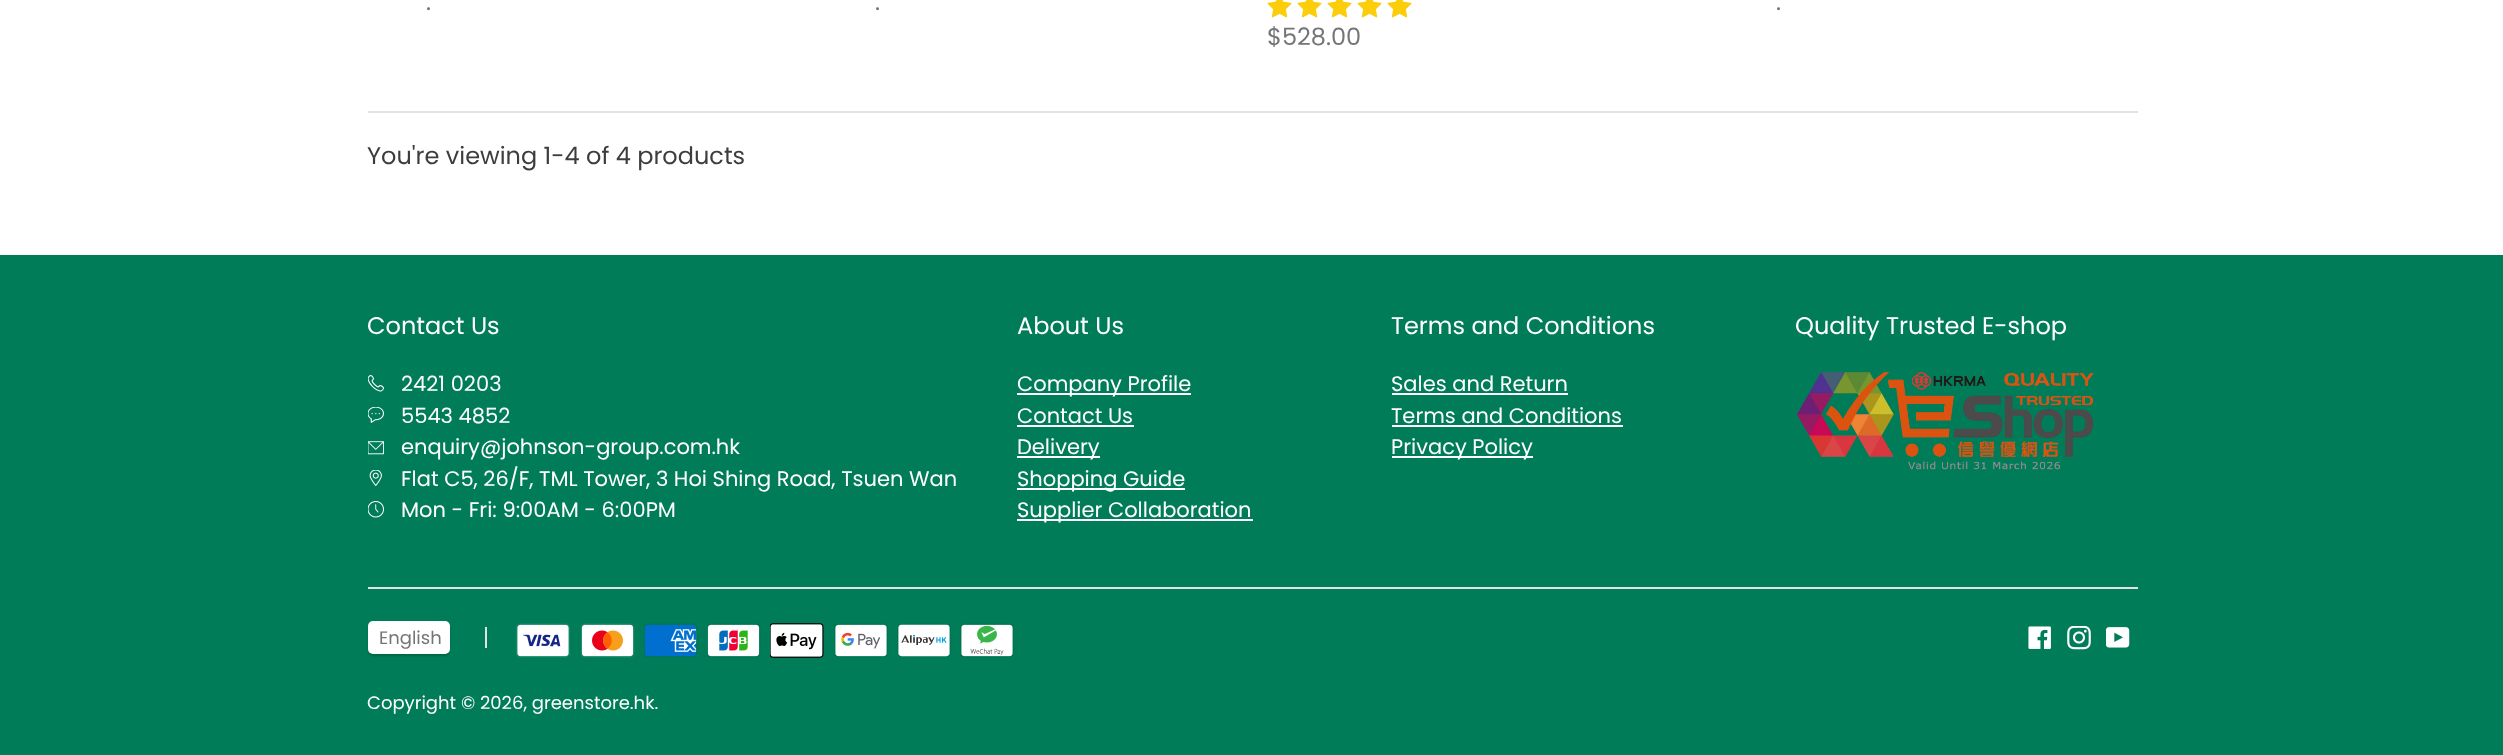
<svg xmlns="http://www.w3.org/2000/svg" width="2503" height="755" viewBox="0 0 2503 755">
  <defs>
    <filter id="blur1" x="-50%" y="-200%" width="200%" height="500%"><feGaussianBlur stdDeviation="1"/></filter>
  </defs>
  <rect width="100%" height="100%" fill="#ffffff"/>
  <text x="426" y="10" font-family="Poppins" font-size="24" fill="#757575">.</text>
  <text x="875" y="10" font-family="Poppins" font-size="24" fill="#757575">.</text>
  <text x="1776" y="10" font-family="Poppins" font-size="24" fill="#757575">.</text>
  <image x="1267" y="0" width="25" height="18" href="img1.png"/>
  <image x="1297" y="0" width="25" height="18" href="img1.png"/>
  <image x="1327" y="0" width="25" height="18" href="img1.png"/>
  <image x="1357" y="0" width="25" height="18" href="img1.png"/>
  <image x="1387" y="0" width="25" height="18" href="img1.png"/>
  <text x="1267" y="45" font-family="Poppins" font-size="24" fill="#757575">$528.00</text>
  <rect x="368" y="111" width="1770" height="2" fill="#e2e2e2"/>
  <text x="367" y="164" font-family="Poppins" font-size="24" fill="#3d3d3d">You're viewing 1-4 of 4 products</text>
  <rect x="0" y="255" width="2503" height="500" fill="#007d58"/>
  <text x="367" y="334" font-family="Poppins" font-size="24" fill="#ffffff">Contact Us</text>
  <image x="368" y="375" width="16" height="17" href="img2.png"/>
  <text x="401" y="391" font-family="Poppins" font-size="21" fill="#ffffff">2421 0203</text>
  <image x="368" y="407" width="16" height="16" href="img3.png"/>
  <text x="401" y="423" font-family="Poppins" font-size="21" fill="#ffffff">5543 4852</text>
  <image x="368" y="441" width="16" height="14" href="img4.png"/>
  <text x="401" y="454" font-family="Poppins" font-size="21" fill="#ffffff">enquiry@johnson-group.com.hk</text>
  <image x="369" y="470" width="13" height="16" href="img5.png"/>
  <text x="401" y="486" font-family="Poppins" font-size="21" fill="#ffffff">Flat C5, 26/F, TML Tower, 3 Hoi Shing Road, Tsuen Wan</text>
  <image x="368" y="501" width="16" height="17" href="img6.png"/>
  <text x="401" y="517" font-family="Poppins" font-size="21" fill="#ffffff">Mon - Fri: 9:00AM - 6:00PM</text>
  <text x="1017" y="334" font-family="Poppins" font-size="24" fill="#ffffff">About Us</text>
  <rect x="1017" y="393" width="174" height="2" fill="#ffffff"/>
  <text x="1017" y="391" font-family="Poppins" font-size="21" fill="#ffffff">Company Profile</text>
  <text x="1017" y="423" font-family="Poppins" font-size="21" fill="#ffffff">Contact Us</text>
  <rect x="1017" y="425" width="117" height="2" fill="#ffffff"/>
  <rect x="1017" y="456" width="83" height="2" fill="#ffffff"/>
  <text x="1017" y="454" font-family="Poppins" font-size="21" fill="#ffffff">Delivery</text>
  <rect x="1017" y="488" width="168" height="2" fill="#ffffff"/>
  <text x="1017" y="486" font-family="Poppins" font-size="21" fill="#ffffff">Shopping Guide</text>
  <rect x="1017" y="519" width="236" height="2" fill="#ffffff"/>
  <text x="1017" y="517" font-family="Poppins" font-size="21" fill="#ffffff">Supplier Collaboration</text>
  <text x="1391" y="334" font-family="Poppins" font-size="24" fill="#ffffff">Terms and Conditions</text>
  <text x="1391" y="391" font-family="Poppins" font-size="21" fill="#ffffff">Sales and Return</text>
  <rect x="1392" y="393" width="176" height="2" fill="#ffffff"/>
  <text x="1391" y="423" font-family="Poppins" font-size="21" fill="#ffffff">Terms and Conditions</text>
  <rect x="1392" y="425" width="231" height="2" fill="#ffffff"/>
  <rect x="1392" y="456" width="141" height="2" fill="#ffffff"/>
  <text x="1391" y="454" font-family="Poppins" font-size="21" fill="#ffffff">Privacy Policy</text>
  <text x="1795" y="334" font-family="Poppins" font-size="24" fill="#ffffff">Quality Trusted E-shop</text>
  <image x="1797" y="372" width="297" height="98" href="img7.png"/>
  <rect x="368" y="587" width="1770" height="2" fill="#e2e2e2"/>
  <rect x="368" y="623" width="82" height="33" rx="5" fill="#000000" fill-opacity="0.2" filter="url(#blur1)"/>
  <rect x="368" y="621" width="82" height="33" rx="5" fill="#ffffff"/>
  <text x="379" y="644" font-family="Poppins" font-size="18" fill="#757575">English</text>
  <rect x="485" y="627" width="2" height="21" fill="#e2e2e2"/>
  <image x="516" y="623" width="54" height="35" href="img8.png"/>
  <image x="581" y="623" width="54" height="35" href="img9.png"/>
  <image x="644" y="623" width="54" height="35" href="img10.png"/>
  <image x="707" y="623" width="54" height="35" href="img11.png"/>
  <image x="770" y="623" width="54" height="35" href="img12.png"/>
  <image x="834" y="623" width="54" height="35" href="img13.png"/>
  <image x="897" y="623" width="54" height="35" href="img14.png"/>
  <image x="960" y="623" width="54" height="35" href="img15.png"/>
  <text x="367" y="709" font-family="Poppins" font-size="18" fill="#ffffff">Copyright © 2026, greenstore.hk.</text>
  <image x="2028" y="626" width="23" height="23" href="img16.png"/>
  <image x="2067" y="626" width="24" height="24" href="img17.png"/>
  <image x="2106" y="627" width="24" height="21" href="img18.png"/>
</svg>
